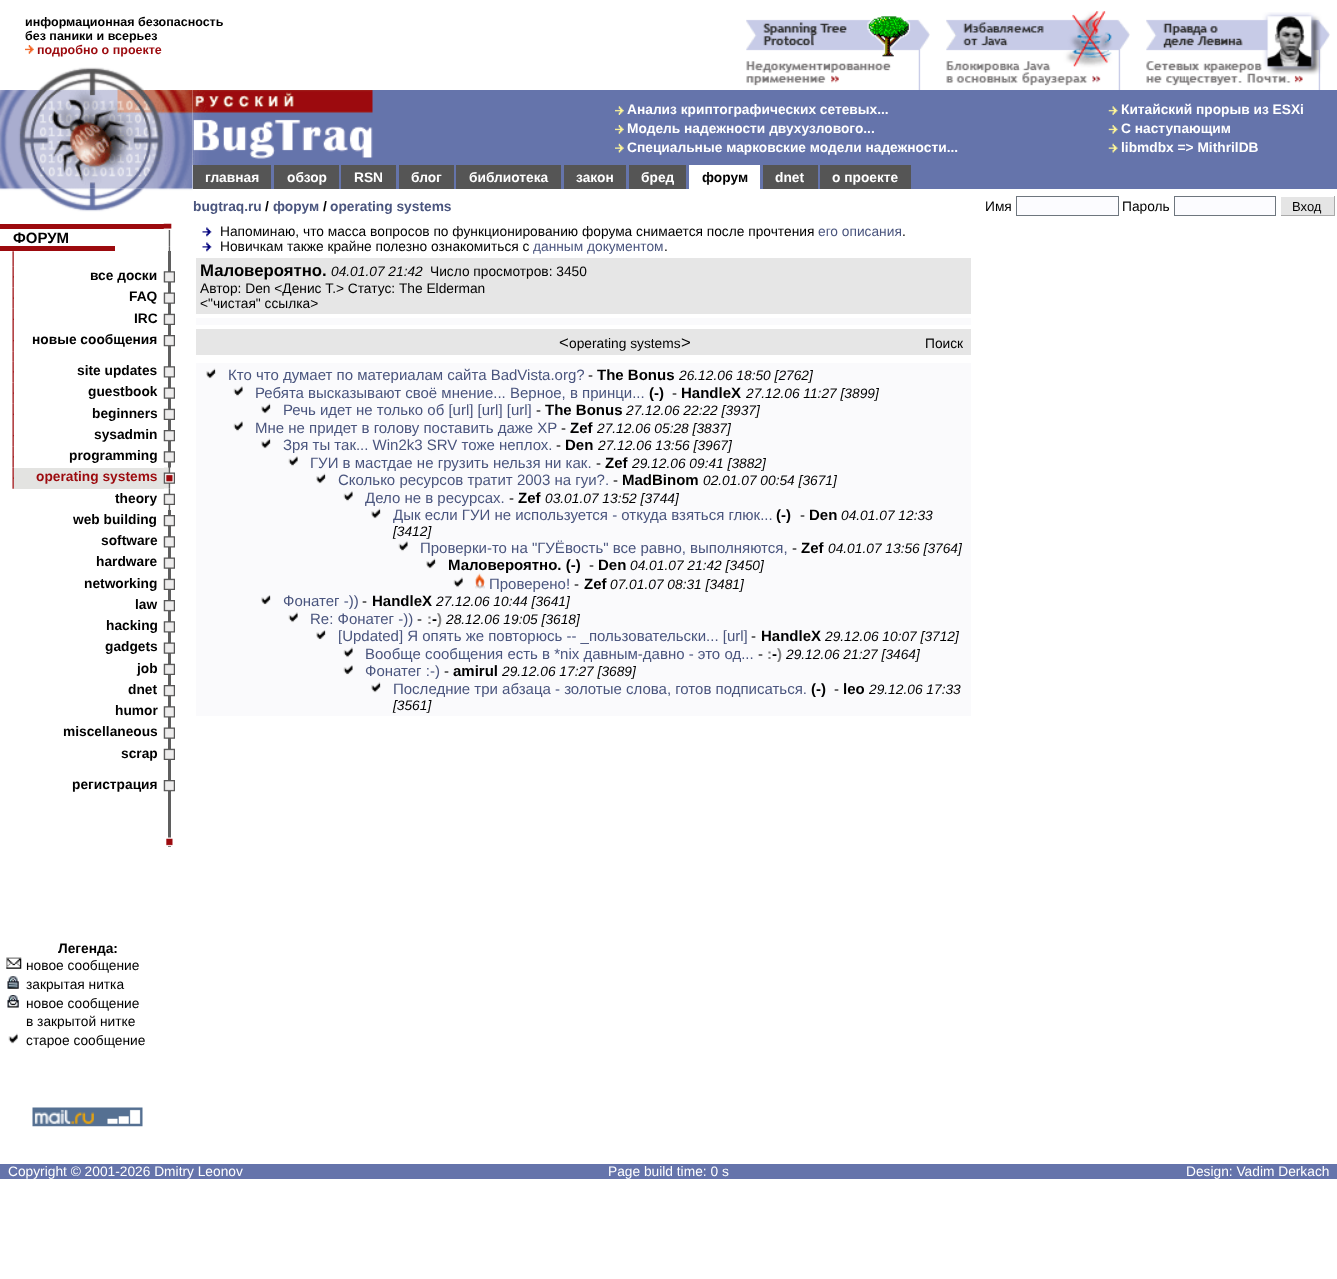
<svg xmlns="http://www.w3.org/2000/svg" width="1337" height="1279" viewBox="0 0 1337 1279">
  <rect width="100%" height="100%" fill="#ffffff"/>
  <text x="25" y="26" font-family="Liberation Sans" font-size="12.5" font-weight="bold" fill="#000000">информационная безопасность</text>
  <text x="25" y="40" font-family="Liberation Sans" font-size="12.5" font-weight="bold" fill="#000000">без паники и всерьез</text>
  <image x="25" y="45" width="9" height="9" href="img1.png"/>
  <text x="37" y="54" font-family="Liberation Sans" font-size="12.5" font-weight="bold" fill="#9c0a0e">подробно о проекте</text>
  <image x="746" y="16" width="184" height="74" href="img2.png"/>
  <image x="946" y="11" width="184" height="79" href="img3.png"/>
  <image x="1146" y="12" width="184" height="78" href="img4.png"/>
  <image x="38" y="67" width="106" height="23" href="img5.png"/>
  <rect x="372" y="90" width="965" height="75" fill="#6574ab"/>
  <image x="0" y="90" width="193" height="99" href="img6.png"/>
  <image x="0" y="188" width="193" height="24" href="img7.png"/>
  <image x="192" y="90" width="181" height="75" href="img8.png"/>
  <image x="615" y="106" width="9" height="9" href="img9.png"/>
  <text x="627" y="114" font-family="Liberation Sans" font-size="13.75" font-weight="bold" fill="#ffffff">Анализ криптографических сетевых...</text>
  <image x="615" y="125" width="9" height="9" href="img10.png"/>
  <text x="627" y="133" font-family="Liberation Sans" font-size="13.75" font-weight="bold" fill="#ffffff">Модель надежности двухузлового...</text>
  <image x="615" y="143" width="9" height="10" href="img11.png"/>
  <text x="627" y="152" font-family="Liberation Sans" font-size="13.75" font-weight="bold" fill="#ffffff">Специальные марковские модели надежности...</text>
  <image x="1108" y="106" width="10" height="9" href="img12.png"/>
  <text x="1121" y="114" font-family="Liberation Sans" font-size="13.75" font-weight="bold" fill="#ffffff">Китайский прорыв из ESXi</text>
  <image x="1108" y="125" width="10" height="9" href="img13.png"/>
  <text x="1121" y="133" font-family="Liberation Sans" font-size="13.75" font-weight="bold" fill="#ffffff">С наступающим</text>
  <image x="1108" y="143" width="10" height="10" href="img14.png"/>
  <text x="1121" y="152" font-family="Liberation Sans" font-size="13.75" font-weight="bold" fill="#ffffff">libmdbx =&gt; MithrilDB</text>
  <rect x="271" y="165" width="1066" height="24" fill="#6574ab"/>
  <rect x="193" y="165" width="78" height="24" fill="#555555"/>
  <text x="205" y="182" font-family="Liberation Sans" font-size="13.75" font-weight="bold" fill="#ffffff">главная</text>
  <rect x="274" y="165" width="65" height="24" fill="#555555"/>
  <text x="287" y="182" font-family="Liberation Sans" font-size="13.75" font-weight="bold" fill="#ffffff">обзор</text>
  <rect x="341" y="165" width="55" height="24" fill="#555555"/>
  <text x="354" y="182" font-family="Liberation Sans" font-size="13.75" font-weight="bold" fill="#ffffff">RSN</text>
  <rect x="399" y="165" width="55" height="24" fill="#555555"/>
  <text x="411" y="182" font-family="Liberation Sans" font-size="13.75" font-weight="bold" fill="#ffffff">блог</text>
  <rect x="456" y="165" width="105" height="24" fill="#555555"/>
  <text x="469" y="182" font-family="Liberation Sans" font-size="13.75" font-weight="bold" fill="#ffffff">библиотека</text>
  <rect x="564" y="165" width="62" height="24" fill="#555555"/>
  <text x="576" y="182" font-family="Liberation Sans" font-size="13.75" font-weight="bold" fill="#ffffff">закон</text>
  <rect x="629" y="165" width="57" height="24" fill="#555555"/>
  <text x="641" y="182" font-family="Liberation Sans" font-size="13.75" font-weight="bold" fill="#ffffff">бред</text>
  <rect x="689" y="165" width="71" height="24" fill="#ffffff"/>
  <text x="702" y="182" font-family="Liberation Sans" font-size="13.75" font-weight="bold" fill="#000000">форум</text>
  <rect x="763" y="165" width="55" height="24" fill="#555555"/>
  <text x="775" y="182" font-family="Liberation Sans" font-size="13.75" font-weight="bold" fill="#ffffff">dnet</text>
  <rect x="820" y="165" width="91" height="24" fill="#555555"/>
  <text x="832" y="182" font-family="Liberation Sans" font-size="13.75" font-weight="bold" fill="#ffffff">о проекте</text>
  <text x="193" y="211" font-family="Liberation Sans" font-size="13.75" font-weight="bold" fill="#4a557e">bugtraq.ru</text>
  <text x="265" y="211" font-family="Liberation Sans" font-size="13.75" font-weight="bold" fill="#000000">/</text>
  <text x="273" y="211" font-family="Liberation Sans" font-size="13.75" font-weight="bold" fill="#4a557e">форум</text>
  <text x="323" y="211" font-family="Liberation Sans" font-size="13.75" font-weight="bold" fill="#000000">/</text>
  <text x="330" y="211" font-family="Liberation Sans" font-size="13.75" font-weight="bold" fill="#4a557e">operating systems</text>
  <text x="985" y="211" font-family="Liberation Sans" font-size="13.75" fill="#000000">Имя</text>
  <rect x="1016.5" y="196.5" width="102" height="19" fill="#fcfcff" stroke="#6e767e"/>
  <text x="1122" y="211" font-family="Liberation Sans" font-size="13.75" fill="#000000">Пароль</text>
  <rect x="1174.5" y="196.5" width="101" height="19" fill="#fcfcff" stroke="#6e767e"/>
  <rect x="1281" y="197" width="53" height="18" fill="#e5e5e5"/>
  <rect x="1334" y="196" width="1" height="20" fill="#aaaaaa"/>
  <rect x="1280" y="215" width="55" height="1" fill="#aaaaaa"/>
  <rect x="1280" y="215" width="1" height="1" fill="#ffffff"/>
  <text x="1292" y="211" font-family="Liberation Sans" font-size="13" fill="#000000">Вход</text>
  <rect x="0" y="224" width="164" height="5" fill="#9c0a0e"/>
  <image x="163" y="228" width="12" height="19" href="img16.png"/>
  <image x="163" y="223" width="12" height="6" href="img15.png"/>
  <text x="13" y="243" font-family="Liberation Sans" font-size="15" font-weight="bold" fill="#000000">ФОРУМ</text>
  <image x="163" y="228" width="12" height="2" href="img17.png"/>
  <rect x="0" y="246" width="115" height="5" fill="#9c0a0e"/>
  <image x="163" y="246" width="8" height="6" href="img18.png"/>
  <image x="12" y="266" width="2" height="22" href="img20.png"/>
  <image x="12" y="251" width="2" height="16" href="img19.png"/>
  <rect x="168" y="251" width="3" height="217" fill="#5f5f5f"/>
  <image x="13" y="276" width="1" height="2" href="img21.png"/>
  <text x="90" y="280" font-family="Liberation Sans" font-size="13.75" font-weight="bold" fill="#000000">все доски</text>
  <image x="163" y="271" width="12" height="12" href="img22.png"/>
  <image x="12" y="287" width="2" height="22" href="img23.png"/>
  <image x="13" y="297" width="1" height="2" href="img24.png"/>
  <text x="129" y="301" font-family="Liberation Sans" font-size="13.75" font-weight="bold" fill="#000000">FAQ</text>
  <image x="163" y="292" width="12" height="12" href="img25.png"/>
  <image x="12" y="308" width="2" height="22" href="img26.png"/>
  <image x="13" y="318" width="1" height="2" href="img27.png"/>
  <text x="134" y="323" font-family="Liberation Sans" font-size="13.75" font-weight="bold" fill="#000000">IRC</text>
  <image x="163" y="313" width="12" height="12" href="img28.png"/>
  <image x="12" y="330" width="2" height="22" href="img29.png"/>
  <image x="13" y="340" width="1" height="2" href="img30.png"/>
  <text x="32" y="344" font-family="Liberation Sans" font-size="13.75" font-weight="bold" fill="#000000">новые сообщения</text>
  <image x="163" y="335" width="12" height="12" href="img31.png"/>
  <image x="12" y="361" width="2" height="22" href="img20.png"/>
  <image x="12" y="351" width="2" height="11" href="img32.png"/>
  <image x="13" y="371" width="1" height="2" href="img21.png"/>
  <text x="77" y="375" font-family="Liberation Sans" font-size="13.75" font-weight="bold" fill="#000000">site updates</text>
  <image x="163" y="366" width="12" height="12" href="img22.png"/>
  <image x="12" y="382" width="2" height="22" href="img23.png"/>
  <image x="13" y="392" width="1" height="2" href="img24.png"/>
  <text x="88" y="396" font-family="Liberation Sans" font-size="13.75" font-weight="bold" fill="#000000">guestbook</text>
  <image x="163" y="387" width="12" height="12" href="img33.png"/>
  <image x="12" y="403" width="2" height="22" href="img26.png"/>
  <image x="13" y="413" width="1" height="2" href="img27.png"/>
  <text x="92" y="418" font-family="Liberation Sans" font-size="13.75" font-weight="bold" fill="#000000">beginners</text>
  <image x="163" y="408" width="12" height="12" href="img28.png"/>
  <image x="12" y="425" width="2" height="22" href="img29.png"/>
  <image x="13" y="435" width="1" height="2" href="img30.png"/>
  <text x="94" y="439" font-family="Liberation Sans" font-size="13.75" font-weight="bold" fill="#000000">sysadmin</text>
  <image x="163" y="430" width="12" height="12" href="img31.png"/>
  <image x="12" y="446" width="2" height="22" href="img34.png"/>
  <image x="13" y="456" width="1" height="2" href="img21.png"/>
  <text x="69" y="460" font-family="Liberation Sans" font-size="13.75" font-weight="bold" fill="#000000">programming</text>
  <image x="163" y="451" width="12" height="12" href="img22.png"/>
  <image x="12" y="467" width="2" height="22" href="img23.png"/>
  <image x="13" y="477" width="1" height="2" href="img24.png"/>
  <rect x="14" y="468" width="150" height="21" fill="#e3e3e1"/>
  <text x="36" y="481" font-family="Liberation Sans" font-size="13.75" font-weight="bold" fill="#9c0a0e">operating systems</text>
  <image x="164" y="467" width="7" height="22" href="img35.png"/>
  <image x="163" y="472" width="12" height="12" href="img36.png"/>
  <text x="115" y="503" font-family="Liberation Sans" font-size="13.75" font-weight="bold" fill="#000000">theory</text>
  <image x="164" y="488" width="7" height="22" href="img37.png"/>
  <image x="163" y="493" width="12" height="12" href="img38.png"/>
  <text x="73" y="524" font-family="Liberation Sans" font-size="13.75" font-weight="bold" fill="#000000">web building</text>
  <rect x="168" y="510" width="3" height="337" fill="#5f5f5f"/>
  <image x="163" y="515" width="12" height="12" href="img31.png"/>
  <text x="101" y="545" font-family="Liberation Sans" font-size="13.75" font-weight="bold" fill="#000000">software</text>
  <image x="163" y="536" width="12" height="12" href="img22.png"/>
  <text x="96" y="566" font-family="Liberation Sans" font-size="13.75" font-weight="bold" fill="#000000">hardware</text>
  <image x="163" y="557" width="12" height="12" href="img33.png"/>
  <text x="84" y="588" font-family="Liberation Sans" font-size="13.75" font-weight="bold" fill="#000000">networking</text>
  <image x="163" y="578" width="12" height="12" href="img28.png"/>
  <text x="135" y="609" font-family="Liberation Sans" font-size="13.75" font-weight="bold" fill="#000000">law</text>
  <image x="163" y="600" width="12" height="12" href="img31.png"/>
  <text x="106" y="630" font-family="Liberation Sans" font-size="13.75" font-weight="bold" fill="#000000">hacking</text>
  <image x="163" y="621" width="12" height="12" href="img22.png"/>
  <text x="105" y="651" font-family="Liberation Sans" font-size="13.75" font-weight="bold" fill="#000000">gadgets</text>
  <image x="163" y="642" width="12" height="12" href="img33.png"/>
  <text x="137" y="673" font-family="Liberation Sans" font-size="13.75" font-weight="bold" fill="#000000">job</text>
  <image x="163" y="663" width="12" height="12" href="img28.png"/>
  <text x="128" y="694" font-family="Liberation Sans" font-size="13.75" font-weight="bold" fill="#000000">dnet</text>
  <image x="163" y="685" width="12" height="12" href="img31.png"/>
  <text x="115" y="715" font-family="Liberation Sans" font-size="13.75" font-weight="bold" fill="#000000">humor</text>
  <image x="163" y="706" width="12" height="12" href="img22.png"/>
  <text x="63" y="736" font-family="Liberation Sans" font-size="13.75" font-weight="bold" fill="#000000">miscellaneous</text>
  <image x="163" y="727" width="12" height="12" href="img33.png"/>
  <text x="121" y="758" font-family="Liberation Sans" font-size="13.75" font-weight="bold" fill="#000000">scrap</text>
  <image x="163" y="748" width="12" height="12" href="img28.png"/>
  <text x="72" y="789" font-family="Liberation Sans" font-size="13.75" font-weight="bold" fill="#000000">регистрация</text>
  <image x="163" y="780" width="12" height="12" href="img31.png"/>
  <image x="166" y="837" width="7" height="10" href="img39.png"/>
  <text x="58" y="953" font-family="Liberation Sans" font-size="13.75" font-weight="bold" fill="#000000">Легенда:</text>
  <image x="6" y="957" width="16" height="12" href="img40.png"/>
  <text x="26" y="970" font-family="Liberation Sans" font-size="13.75" fill="#000000">новое сообщение</text>
  <image x="7" y="976" width="12" height="13" href="img41.png"/>
  <text x="26" y="989" font-family="Liberation Sans" font-size="13.75" fill="#000000">закрытая нитка</text>
  <image x="7" y="995" width="12" height="13" href="img42.png"/>
  <text x="26" y="1008" font-family="Liberation Sans" font-size="13.75" fill="#000000">новое сообщение</text>
  <text x="26" y="1026" font-family="Liberation Sans" font-size="13.75" fill="#000000">в закрытой нитке</text>
  <image x="8" y="1033" width="10" height="11" href="img43.png"/>
  <text x="26" y="1045" font-family="Liberation Sans" font-size="13.75" fill="#000000">старое сообщение</text>
  <image x="202" y="227" width="10" height="10" href="img44.png"/>
  <text x="220" y="236" font-family="Liberation Sans" font-size="13.75" fill="#000000">Напоминаю, что масса вопросов по функционированию форума снимается после прочтения</text>
  <text x="818" y="236" font-family="Liberation Sans" font-size="13.75" fill="#4a557e">его описания</text>
  <text x="902" y="236" font-family="Liberation Sans" font-size="13.75" fill="#000000">.</text>
  <image x="202" y="242" width="10" height="10" href="img44.png"/>
  <text x="220" y="251" font-family="Liberation Sans" font-size="13.75" fill="#000000">Новичкам также крайне полезно ознакомиться с</text>
  <text x="533" y="251" font-family="Liberation Sans" font-size="13.75" fill="#4a557e">данным документом</text>
  <text x="664" y="251" font-family="Liberation Sans" font-size="13.75" fill="#000000">.</text>
  <rect x="196" y="258" width="775" height="56" fill="#e6e6e6"/>
  <text x="200" y="276" font-family="Liberation Sans" font-size="16.75" font-weight="bold" fill="#000000">Маловероятно.</text>
  <text x="331" y="276" font-family="Liberation Sans" font-size="13.75" font-style="italic" fill="#000000">04.01.07 21:42</text>
  <text x="430" y="276" font-family="Liberation Sans" font-size="13.75" fill="#000000">Число просмотров: 3450</text>
  <text x="200" y="293" font-family="Liberation Sans" font-size="13.75" fill="#000000">Автор: Den &lt;Денис Т.&gt; Статус: The Elderman</text>
  <text x="200" y="308" font-family="Liberation Sans" font-size="13.75" fill="#000000">&lt;"чистая" ссылка&gt;</text>
  <rect x="196" y="318" width="775" height="7" fill="#fafafc"/>
  <rect x="196" y="329" width="775" height="26" fill="#e6e6e6"/>
  <text x="559" y="348" font-family="Liberation Sans" font-size="16.75" fill="#000000">&lt;</text>
  <text x="569" y="348" font-family="Liberation Sans" font-size="13.75" fill="#000000">operating systems</text>
  <text x="681" y="348" font-family="Liberation Sans" font-size="16.75" fill="#000000">&gt;</text>
  <text x="925" y="348" font-family="Liberation Sans" font-size="13.75" fill="#000000">Поиск</text>
  <rect x="196" y="363" width="775" height="353" fill="#fafafc"/>
  <image x="206" y="368" width="10" height="11" href="img45.png"/>
  <text x="228" y="380" font-family="Liberation Sans" font-size="15" fill="#4a557e">Кто что думает по материалам сайта BadVista.org?</text>
  <text x="588" y="380" font-family="Liberation Sans" font-size="15" fill="#000000">-</text>
  <text x="597" y="380" font-family="Liberation Sans" font-size="15" font-weight="bold" fill="#000000">The Bonus</text>
  <text x="679" y="380" font-family="Liberation Sans" font-size="13.75" font-style="italic" fill="#000000">26.12.06 18:50 [2762]</text>
  <image x="233" y="386" width="10" height="11" href="img46.png"/>
  <text x="255" y="398" font-family="Liberation Sans" font-size="15" fill="#4a557e">Ребята высказывают своё мнение... Верное, в принци...</text>
  <text x="649" y="398" font-family="Liberation Sans" font-size="15" font-weight="bold" fill="#000000">(-)</text>
  <text x="672" y="398" font-family="Liberation Sans" font-size="15" fill="#000000">-</text>
  <text x="681" y="398" font-family="Liberation Sans" font-size="15" font-weight="bold" fill="#000000">HandleX</text>
  <text x="746" y="398" font-family="Liberation Sans" font-size="13.75" font-style="italic" fill="#000000">27.12.06 11:27 [3899]</text>
  <image x="261" y="403" width="10" height="11" href="img45.png"/>
  <text x="283" y="415" font-family="Liberation Sans" font-size="15" fill="#4a557e">Речь идет не только об [url] [url] [url]</text>
  <text x="536" y="415" font-family="Liberation Sans" font-size="15" fill="#000000">-</text>
  <text x="545" y="415" font-family="Liberation Sans" font-size="15" font-weight="bold" fill="#000000">The Bonus</text>
  <text x="626" y="415" font-family="Liberation Sans" font-size="13.75" font-style="italic" fill="#000000">27.12.06 22:22 [3937]</text>
  <image x="233" y="421" width="10" height="11" href="img46.png"/>
  <text x="255" y="433" font-family="Liberation Sans" font-size="15" fill="#4a557e">Мне не придет в голову поставить даже XP</text>
  <text x="561" y="433" font-family="Liberation Sans" font-size="15" fill="#000000">-</text>
  <text x="570" y="433" font-family="Liberation Sans" font-size="15" font-weight="bold" fill="#000000">Zef</text>
  <text x="597" y="433" font-family="Liberation Sans" font-size="13.75" font-style="italic" fill="#000000">27.12.06 05:28 [3837]</text>
  <image x="261" y="438" width="10" height="11" href="img45.png"/>
  <text x="283" y="450" font-family="Liberation Sans" font-size="15" fill="#4a557e">Зря ты так... Win2k3 SRV тоже неплох.</text>
  <text x="556" y="450" font-family="Liberation Sans" font-size="15" fill="#000000">-</text>
  <text x="565" y="450" font-family="Liberation Sans" font-size="15" font-weight="bold" fill="#000000">Den</text>
  <text x="598" y="450" font-family="Liberation Sans" font-size="13.75" font-style="italic" fill="#000000">27.12.06 13:56 [3967]</text>
  <image x="288" y="456" width="10" height="11" href="img47.png"/>
  <text x="310" y="468" font-family="Liberation Sans" font-size="15" fill="#4a557e">ГУИ в мастдае не грузить нельзя ни как.</text>
  <text x="596" y="468" font-family="Liberation Sans" font-size="15" fill="#000000">-</text>
  <text x="605" y="468" font-family="Liberation Sans" font-size="15" font-weight="bold" fill="#000000">Zef</text>
  <text x="632" y="468" font-family="Liberation Sans" font-size="13.75" font-style="italic" fill="#000000">29.12.06 09:41 [3882]</text>
  <image x="316" y="473" width="10" height="11" href="img45.png"/>
  <text x="338" y="485" font-family="Liberation Sans" font-size="15" fill="#4a557e">Сколько ресурсов тратит 2003 на гуи?.</text>
  <text x="613" y="485" font-family="Liberation Sans" font-size="15" fill="#000000">-</text>
  <text x="622" y="485" font-family="Liberation Sans" font-size="15" font-weight="bold" fill="#000000">MadBinom</text>
  <text x="703" y="485" font-family="Liberation Sans" font-size="13.75" font-style="italic" fill="#000000">02.01.07 00:54 [3671]</text>
  <image x="343" y="491" width="10" height="11" href="img46.png"/>
  <text x="365" y="503" font-family="Liberation Sans" font-size="15" fill="#4a557e">Дело не в ресурсах.</text>
  <text x="509" y="503" font-family="Liberation Sans" font-size="15" fill="#000000">-</text>
  <text x="518" y="503" font-family="Liberation Sans" font-size="15" font-weight="bold" fill="#000000">Zef</text>
  <text x="545" y="503" font-family="Liberation Sans" font-size="13.75" font-style="italic" fill="#000000">03.01.07 13:52 [3744]</text>
  <image x="371" y="508" width="10" height="11" href="img48.png"/>
  <text x="393" y="520" font-family="Liberation Sans" font-size="15" fill="#4a557e">Дык если ГУИ не используется - откуда взяться глюк...</text>
  <text x="776" y="520" font-family="Liberation Sans" font-size="15" font-weight="bold" fill="#000000">(-)</text>
  <text x="800" y="520" font-family="Liberation Sans" font-size="15" fill="#000000">-</text>
  <text x="809" y="520" font-family="Liberation Sans" font-size="15" font-weight="bold" fill="#000000">Den</text>
  <text x="841" y="520" font-family="Liberation Sans" font-size="13.75" font-style="italic" fill="#000000">04.01.07 12:33</text>
  <text x="393" y="536" font-family="Liberation Sans" font-size="13.75" font-style="italic" fill="#000000">[3412]</text>
  <image x="398" y="541" width="10" height="11" href="img46.png"/>
  <text x="420" y="553" font-family="Liberation Sans" font-size="15" fill="#4a557e">Проверки-то на "ГУЁвость" все равно, выполняются,</text>
  <text x="792" y="553" font-family="Liberation Sans" font-size="15" fill="#000000">-</text>
  <text x="801" y="553" font-family="Liberation Sans" font-size="15" font-weight="bold" fill="#000000">Zef</text>
  <text x="828" y="553" font-family="Liberation Sans" font-size="13.75" font-style="italic" fill="#000000">04.01.07 13:56 [3764]</text>
  <image x="426" y="558" width="10" height="11" href="img45.png"/>
  <text x="448" y="570" font-family="Liberation Sans" font-size="15" font-weight="bold" fill="#000000">Маловероятно. (-)</text>
  <text x="589" y="570" font-family="Liberation Sans" font-size="15" fill="#000000">-</text>
  <text x="598" y="570" font-family="Liberation Sans" font-size="15" font-weight="bold" fill="#000000">Den</text>
  <text x="630" y="570" font-family="Liberation Sans" font-size="13.75" font-style="italic" fill="#000000">04.01.07 21:42 [3450]</text>
  <image x="453" y="577" width="10" height="11" href="img49.png"/>
  <image x="475" y="573" width="10" height="16" href="img50.png"/>
  <text x="489" y="589" font-family="Liberation Sans" font-size="15" fill="#4a557e">Проверено!</text>
  <text x="574" y="589" font-family="Liberation Sans" font-size="15" fill="#000000">-</text>
  <text x="584" y="589" font-family="Liberation Sans" font-size="15" font-weight="bold" fill="#000000">Zef</text>
  <text x="610" y="589" font-family="Liberation Sans" font-size="13.75" font-style="italic" fill="#000000">07.01.07 08:31 [3481]</text>
  <image x="261" y="595" width="10" height="10" href="img51.png"/>
  <text x="283" y="606" font-family="Liberation Sans" font-size="15" fill="#4a557e">Фонатег -))</text>
  <text x="362" y="606" font-family="Liberation Sans" font-size="15" fill="#000000">-</text>
  <text x="372" y="606" font-family="Liberation Sans" font-size="15" font-weight="bold" fill="#000000">HandleX</text>
  <text x="436" y="606" font-family="Liberation Sans" font-size="13.75" font-style="italic" fill="#000000">27.12.06 10:44 [3641]</text>
  <image x="288" y="612" width="10" height="11" href="img49.png"/>
  <text x="310" y="624" font-family="Liberation Sans" font-size="15" fill="#4a557e">Re: Фонатег -))</text>
  <text x="417" y="624" font-family="Liberation Sans" font-size="15" fill="#000000">-</text>
  <text x="427" y="624" font-family="Liberation Sans" font-size="15" font-weight="bold" fill="#808080">:</text>
  <text x="432" y="624" font-family="Liberation Sans" font-size="15" font-weight="bold" fill="#000000">-</text>
  <text x="437" y="624" font-family="Liberation Sans" font-size="15" font-weight="bold" fill="#808080">)</text>
  <text x="446" y="624" font-family="Liberation Sans" font-size="13.75" font-style="italic" fill="#000000">28.12.06 19:05 [3618]</text>
  <image x="316" y="630" width="10" height="10" href="img51.png"/>
  <text x="338" y="641" font-family="Liberation Sans" font-size="15" fill="#4a557e">[Updated] Я опять же повторюсь -- _пользовательски... [url]</text>
  <text x="751" y="641" font-family="Liberation Sans" font-size="15" fill="#000000">-</text>
  <text x="761" y="641" font-family="Liberation Sans" font-size="15" font-weight="bold" fill="#000000">HandleX</text>
  <text x="825" y="641" font-family="Liberation Sans" font-size="13.75" font-style="italic" fill="#000000">29.12.06 10:07 [3712]</text>
  <image x="343" y="647" width="10" height="11" href="img52.png"/>
  <text x="365" y="659" font-family="Liberation Sans" font-size="15" fill="#4a557e">Вообще сообщения есть в *nix давным-давно - это од...</text>
  <text x="758" y="659" font-family="Liberation Sans" font-size="15" fill="#000000">-</text>
  <text x="767" y="659" font-family="Liberation Sans" font-size="15" font-weight="bold" fill="#808080">:</text>
  <text x="772" y="659" font-family="Liberation Sans" font-size="15" font-weight="bold" fill="#000000">-</text>
  <text x="777" y="659" font-family="Liberation Sans" font-size="15" font-weight="bold" fill="#808080">)</text>
  <text x="786" y="659" font-family="Liberation Sans" font-size="13.75" font-style="italic" fill="#000000">29.12.06 21:27 [3464]</text>
  <image x="343" y="665" width="10" height="10" href="img53.png"/>
  <text x="365" y="676" font-family="Liberation Sans" font-size="15" fill="#4a557e">Фонатег :-)</text>
  <text x="444" y="676" font-family="Liberation Sans" font-size="15" fill="#000000">-</text>
  <text x="453" y="676" font-family="Liberation Sans" font-size="15" font-weight="bold" fill="#000000">amirul</text>
  <text x="502" y="676" font-family="Liberation Sans" font-size="13.75" font-style="italic" fill="#000000">29.12.06 17:27 [3689]</text>
  <image x="371" y="682" width="10" height="11" href="img54.png"/>
  <text x="393" y="694" font-family="Liberation Sans" font-size="15" fill="#4a557e">Последние три абзаца - золотые слова, готов подписаться.</text>
  <text x="811" y="694" font-family="Liberation Sans" font-size="15" font-weight="bold" fill="#000000">(-)</text>
  <text x="834" y="694" font-family="Liberation Sans" font-size="15" fill="#000000">-</text>
  <text x="843" y="694" font-family="Liberation Sans" font-size="15" font-weight="bold" fill="#000000">leo</text>
  <text x="869" y="694" font-family="Liberation Sans" font-size="13.75" font-style="italic" fill="#000000">29.12.06 17:33</text>
  <text x="393" y="710" font-family="Liberation Sans" font-size="13.75" font-style="italic" fill="#000000">[3561]</text>
  <image x="32" y="1107" width="111" height="20" href="img55.png"/>
  <rect x="0" y="1164" width="1337" height="15" fill="#6574ab"/>
  <text x="8" y="1176" font-family="Liberation Sans" font-size="13.75" fill="#ffffff">Copyright © 2001-2026 Dmitry Leonov</text>
  <text x="608" y="1176" font-family="Liberation Sans" font-size="13.75" fill="#ffffff">Page build time: 0 s</text>
  <text x="1186" y="1176" font-family="Liberation Sans" font-size="13.75" fill="#ffffff">Design: Vadim Derkach</text>
</svg>
